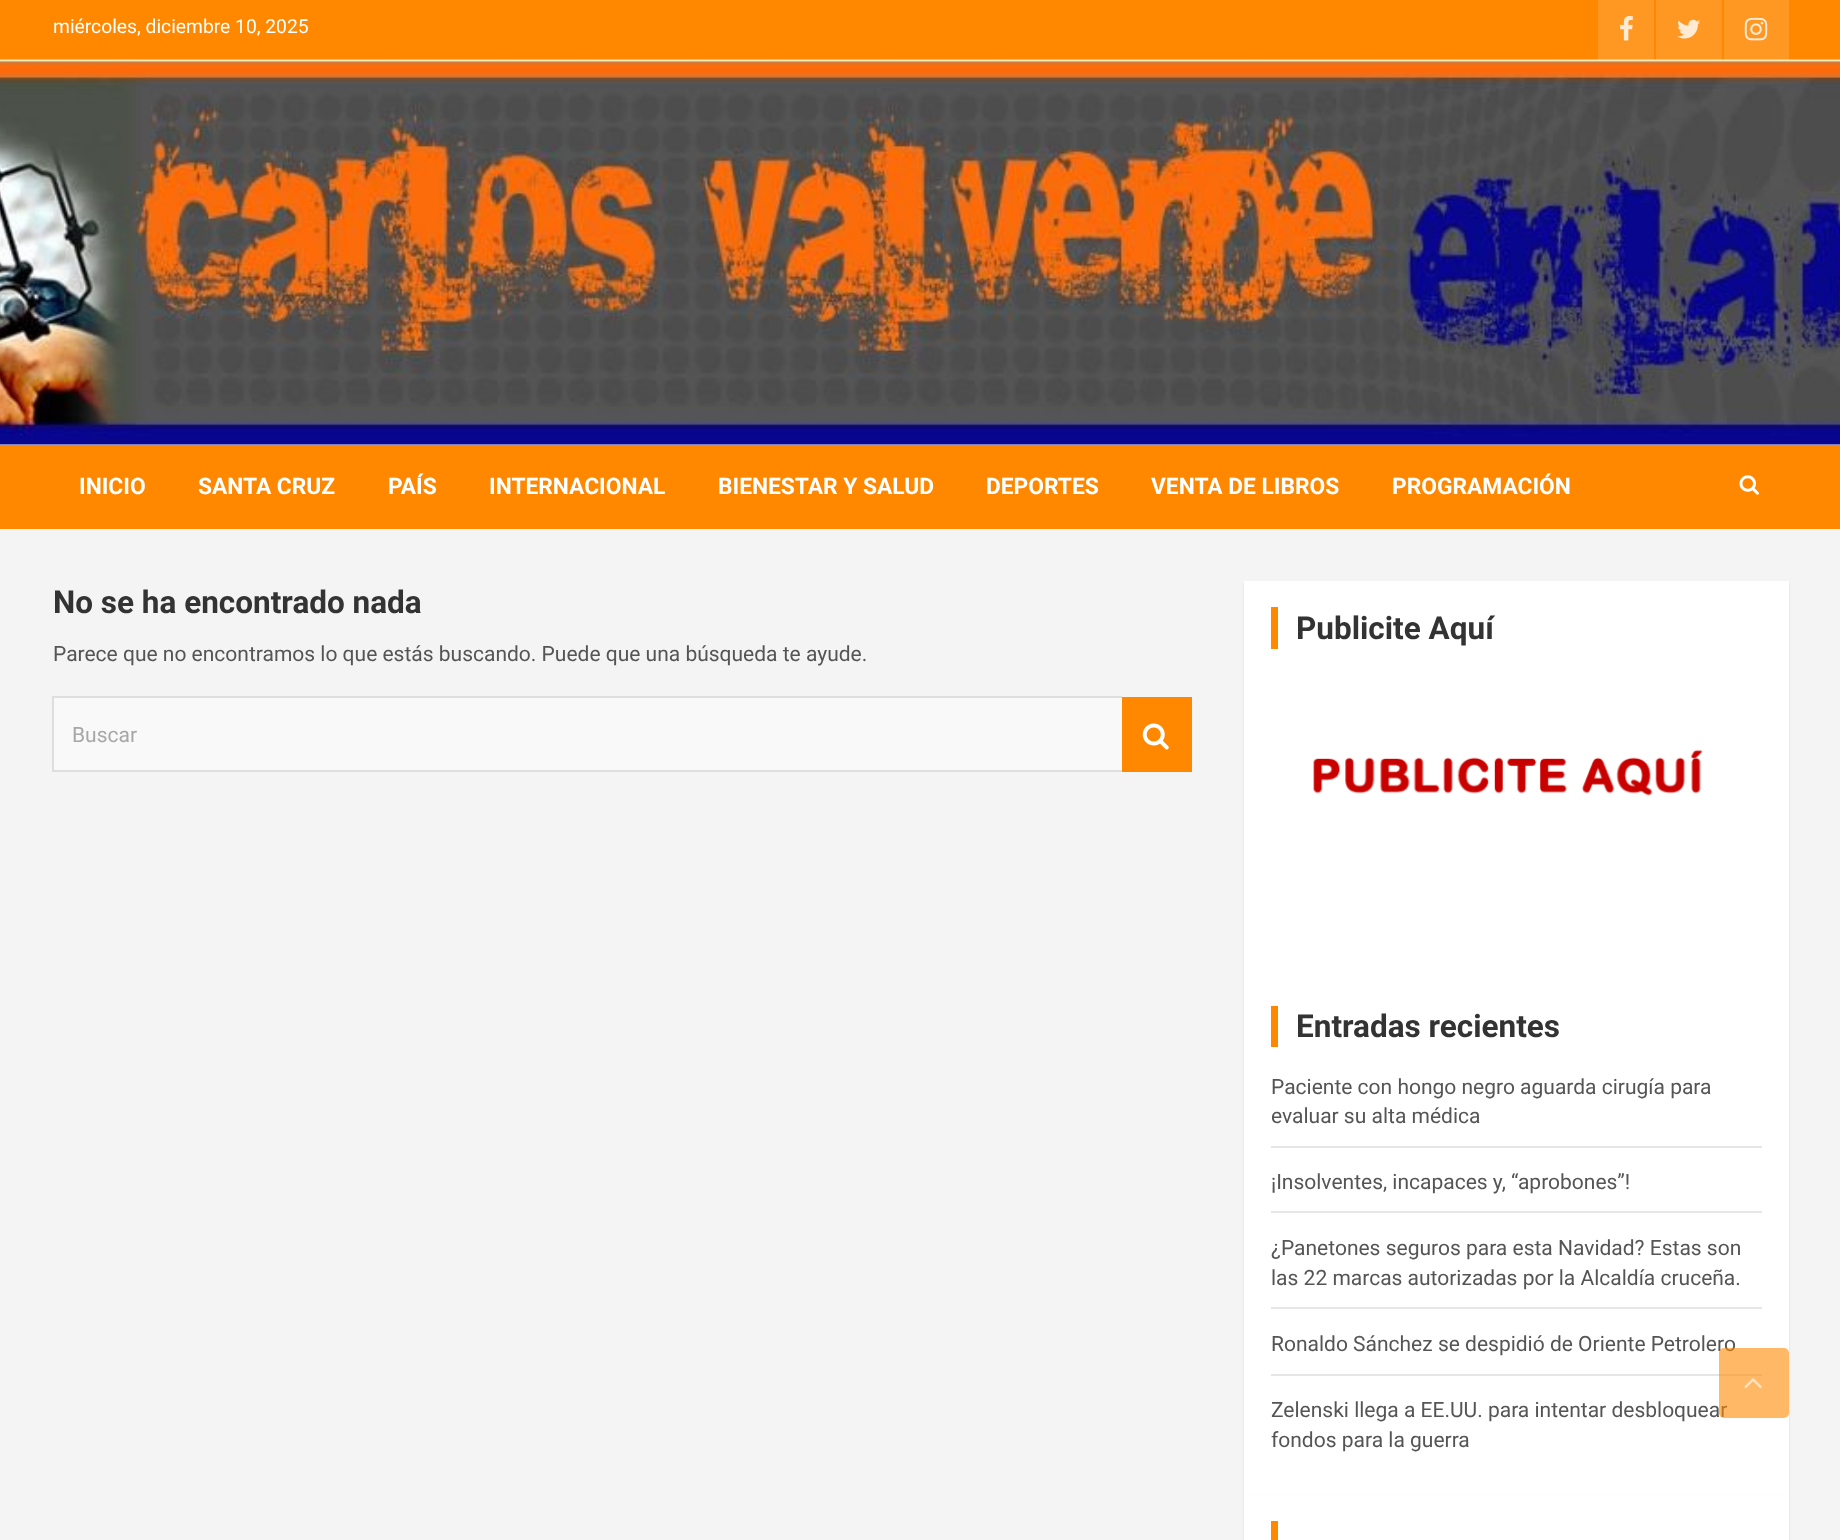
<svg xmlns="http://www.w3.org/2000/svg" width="1840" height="1540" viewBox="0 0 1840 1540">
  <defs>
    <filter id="blur1" x="-50%" y="-200%" width="200%" height="500%"><feGaussianBlur stdDeviation="1"/></filter>
  </defs>
  <rect width="100%" height="100%" fill="#f4f4f4"/>
  <rect x="0" y="0" width="1840" height="60" fill="#ff8800"/>
  <text x="53" y="33" font-family="Roboto" font-size="19.25" fill="#ffffff">miércoles, diciembre 10, 2025</text>
  <rect x="1598" y="0" width="56" height="60" fill="#ff9823"/>
  <image x="1620" y="16" width="13" height="25" href="img1.png"/>
  <rect x="1656" y="0" width="66" height="60" fill="#ff9823"/>
  <image x="1677" y="19" width="23" height="20" href="img2.png"/>
  <rect x="1724" y="0" width="65" height="60" fill="#ff9823"/>
  <image x="1744" y="17" width="24" height="24" href="img3.png"/>
  <rect x="0" y="444" width="1840" height="1" fill="#ffffff"/>
  <image x="0" y="59" width="1840" height="386" href="img4.png"/>
  <rect x="0" y="445" width="1840" height="84" fill="#ff8800"/>
  <text x="79" y="494" font-family="Roboto" font-size="22.75" font-weight="bold" fill="#ffffff">INICIO</text>
  <text x="198" y="494" font-family="Roboto" font-size="22.75" font-weight="bold" fill="#ffffff">SANTA CRUZ</text>
  <text x="388" y="494" font-family="Roboto" font-size="22.75" font-weight="bold" fill="#ffffff">PAÍS</text>
  <text x="489" y="494" font-family="Roboto" font-size="22.75" font-weight="bold" fill="#ffffff">INTERNACIONAL</text>
  <text x="718" y="494" font-family="Roboto" font-size="22.75" font-weight="bold" fill="#ffffff">BIENESTAR Y SALUD</text>
  <text x="986" y="494" font-family="Roboto" font-size="22.75" font-weight="bold" fill="#ffffff">DEPORTES</text>
  <text x="1151" y="494" font-family="Roboto" font-size="22.75" font-weight="bold" fill="#ffffff">VENTA DE LIBROS</text>
  <text x="1392" y="494" font-family="Roboto" font-size="22.75" font-weight="bold" fill="#ffffff">PROGRAMACIÓN</text>
  <image x="1739" y="475" width="20" height="20" href="img5.png"/>
  <text x="53" y="613" font-family="Roboto" font-size="31.5" font-weight="bold" fill="#333333">No se ha encontrado nada</text>
  <text x="53" y="661" font-family="Roboto" font-size="21" fill="#555555">Parece que no encontramos lo que estás buscando. Puede que una búsqueda te ayude.</text>
  <rect x="54" y="698" width="1068" height="72" fill="#f9f9f9"/>
  <path d="M52 696H1122V698H54Z" fill="#dedede"/>
  <path d="M1122 772H52L54 770H1122Z" fill="#dedede"/>
  <path d="M52 772V696L54 698V770Z" fill="#000000" fill-opacity="0.09"/>
  <text x="72" y="742" font-family="Roboto" font-size="21" fill="#a7a7a7">Buscar</text>
  <rect x="1122" y="697" width="70" height="75" fill="#ff8800"/>
  <image x="1142" y="723" width="27" height="27" href="img6.png"/>
  <rect x="1244" y="583" width="545" height="317" fill="#000000" fill-opacity="0.1" filter="url(#blur1)"/>
  <rect x="1244" y="581" width="545" height="317" fill="#ffffff"/>
  <rect x="1271" y="607" width="7" height="42" fill="#ff8800"/>
  <text x="1296" y="639" font-family="Roboto" font-size="31.5" font-weight="bold" fill="#333333">Publicite Aquí</text>
  <image x="1313" y="749" width="390" height="47" href="img7.png"/>
  <rect x="1244" y="900" width="545" height="82" fill="#000000" fill-opacity="0.1" filter="url(#blur1)"/>
  <rect x="1244" y="898" width="545" height="82" fill="#ffffff"/>
  <rect x="1244" y="982" width="545" height="514" fill="#000000" fill-opacity="0.1" filter="url(#blur1)"/>
  <rect x="1244" y="980" width="545" height="515" fill="#ffffff"/>
  <rect x="1271" y="1006" width="7" height="41" fill="#ff8800"/>
  <text x="1296" y="1037" font-family="Roboto" font-size="31.5" font-weight="bold" fill="#333333">Entradas recientes</text>
  <rect x="1271" y="1146" width="491" height="2" fill="#e6e6e6"/>
  <text x="1271" y="1094" font-family="Roboto" font-size="21" fill="#555555">Paciente con hongo negro aguarda cirugía para</text>
  <text x="1271" y="1123" font-family="Roboto" font-size="21" fill="#555555">evaluar su alta médica</text>
  <rect x="1271" y="1211" width="491" height="2" fill="#e6e6e6"/>
  <text x="1271" y="1189" font-family="Roboto" font-size="21" fill="#555555">¡Insolventes, incapaces y, “aprobones”!</text>
  <rect x="1271" y="1307" width="491" height="2" fill="#e6e6e6"/>
  <text x="1271" y="1255" font-family="Roboto" font-size="21" fill="#555555">¿Panetones seguros para esta Navidad? Estas son</text>
  <text x="1271" y="1285" font-family="Roboto" font-size="21" fill="#555555">las 22 marcas autorizadas por la Alcaldía cruceña.</text>
  <rect x="1271" y="1374" width="491" height="2" fill="#e6e6e6"/>
  <text x="1271" y="1351" font-family="Roboto" font-size="21" fill="#555555">Ronaldo Sánchez se despidió de Oriente Petrolero</text>
  <text x="1271" y="1417" font-family="Roboto" font-size="21" fill="#555555">Zelenski llega a EE.UU. para intentar desbloquear</text>
  <text x="1271" y="1447" font-family="Roboto" font-size="21" fill="#555555">fondos para la guerra</text>
  <rect x="1244" y="1496" width="545" height="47" fill="#000000" fill-opacity="0.1" filter="url(#blur1)"/>
  <rect x="1244" y="1495" width="545" height="45" fill="#ffffff"/>
  <rect x="1271" y="1521" width="7" height="19" fill="#ff8800"/>
  <rect x="1719" y="1348" width="70" height="70" rx="5" fill="#ff8800" fill-opacity="0.6"/>
  <image x="1744" y="1378" width="18" height="11" href="img8.png"/>
</svg>
